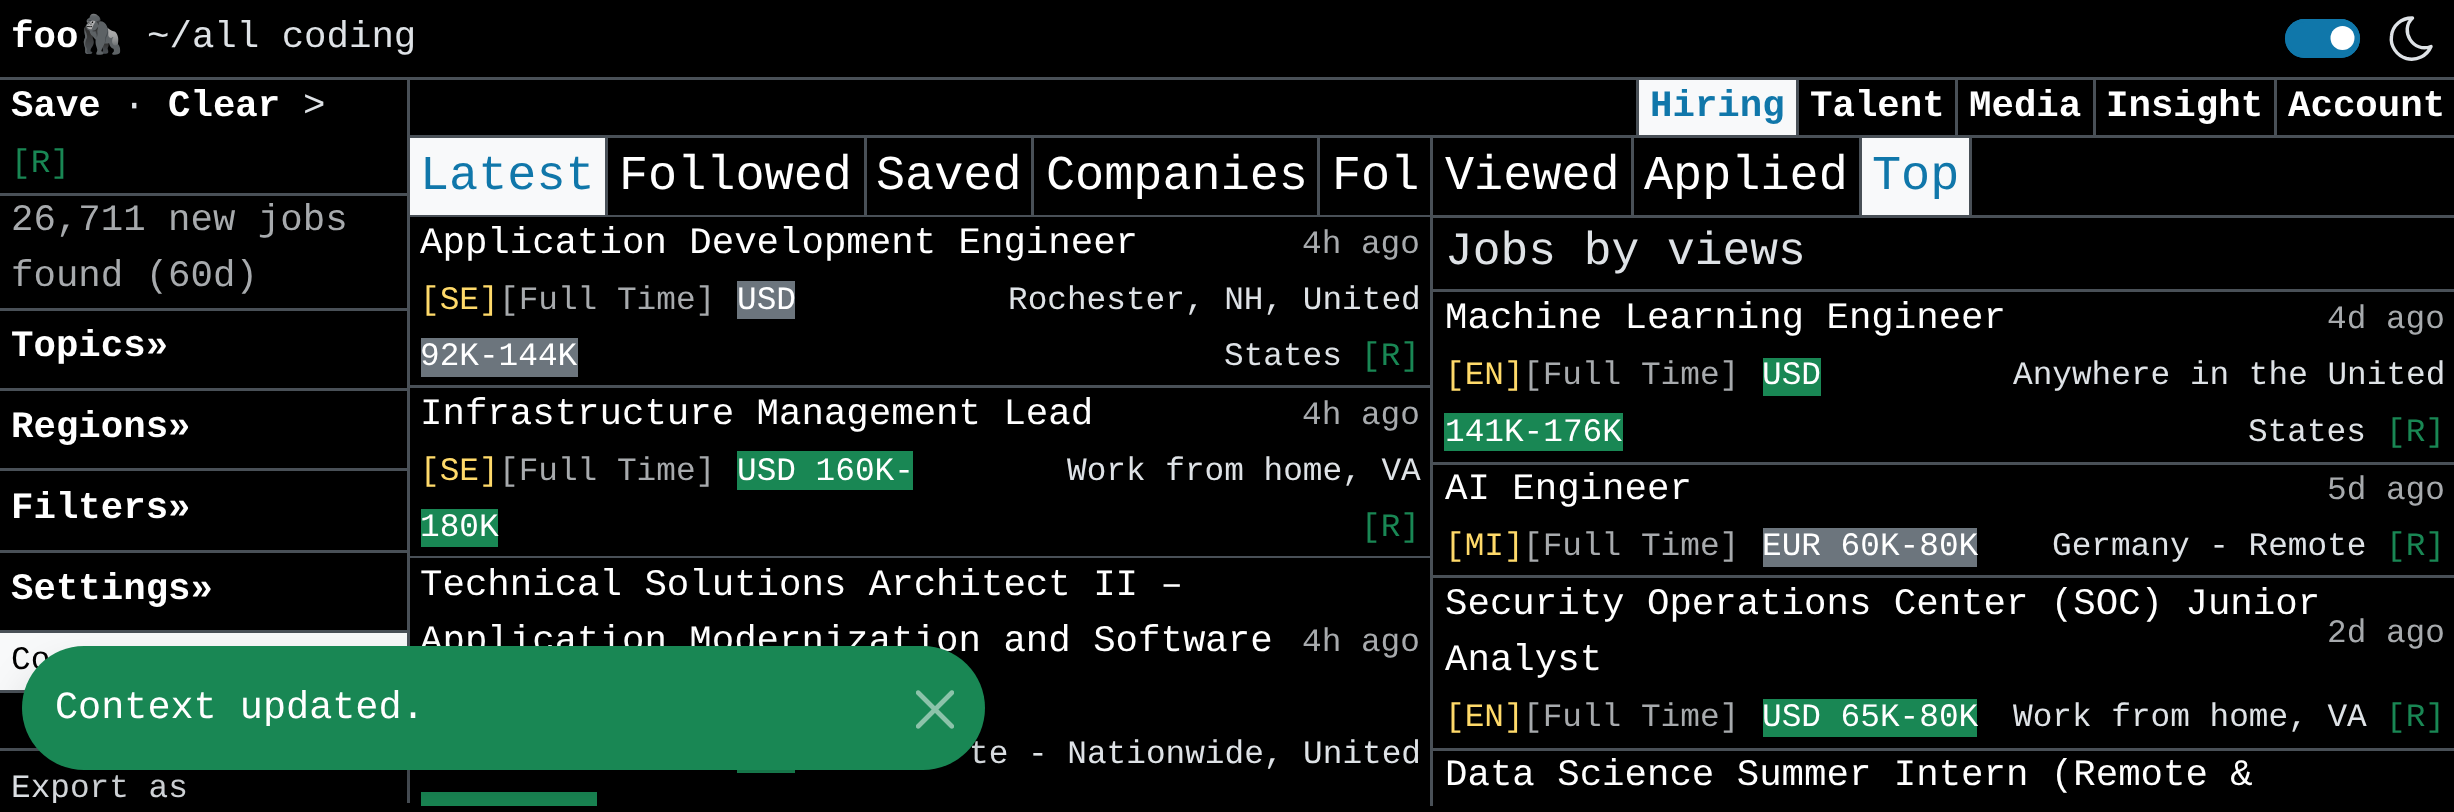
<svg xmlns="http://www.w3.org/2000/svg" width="2454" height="812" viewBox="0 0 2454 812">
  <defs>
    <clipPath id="clip1"><rect x="0" y="80" width="407" height="723"/></clipPath>
    <filter id="blur1" x="-50%" y="-200%" width="200%" height="500%"><feGaussianBlur stdDeviation="22"/></filter>
  </defs>
  <rect width="100%" height="100%" fill="#000000"/>
  <rect x="0" y="77" width="2454" height="3" fill="#495057"/>
  <text x="11" y="47" font-family="Liberation Mono" font-size="37.4" font-weight="bold" fill="#ffffff">foo</text>
  <text x="78" y="47" font-family="Noto Color Emoji" font-size="37.4" font-weight="bold" fill="#ffffff">🦍</text>
  <text x="147" y="47" font-family="Liberation Mono" font-size="37.4" fill="#dee2e6">~/all coding</text>
  <rect x="2285" y="19" width="75" height="39" rx="19.5" fill="#1077aa"/>
  <circle cx="2342.5" cy="38" r="12" fill="#ffffff"/>
  <rect x="2286.5" y="20.5" width="72" height="36" rx="18" fill="none" stroke="#1077aa" stroke-width="3"/>
  <path d="M2412 18H2412.5C2399 30.5 2413.5 53.5 2431 46.5C2427 56 2416.5 61 2406.5 58.5C2396.5 55.5 2390 46 2391.5 36C2392.5 25.5 2401.5 18 2412 18Z" fill="none" stroke="#dee2e6" stroke-width="3.4" stroke-linecap="round" stroke-linejoin="round"/>
  <rect x="407" y="80" width="3" height="723" fill="#495057"/>
  <rect x="0" y="193" width="407" height="3" fill="#495057"/>
  <text x="11" y="116" font-family="Liberation Mono" font-size="37.4" font-weight="bold" fill="#ffffff">Save</text>
  <text x="123" y="116" font-family="Liberation Mono" font-size="37.4" fill="#dee2e6">·</text>
  <text x="168" y="116" font-family="Liberation Mono" font-size="37.4" font-weight="bold" fill="#ffffff">Clear</text>
  <text x="303" y="116" font-family="Liberation Mono" font-size="37.4" fill="#dee2e6">&gt;</text>
  <text x="11" y="172" font-family="Liberation Mono" font-size="32.75" fill="#198754">[R]</text>
  <rect x="0" y="308" width="407" height="3" fill="#495057"/>
  <text x="11" y="230" font-family="Liberation Mono" font-size="37.4" fill="#a7aaad">26,711 new jobs</text>
  <text x="11" y="286" font-family="Liberation Mono" font-size="37.4" fill="#a7aaad">found (60d)</text>
  <rect x="0" y="388" width="407" height="3" fill="#495057"/>
  <text x="11" y="356" font-family="Liberation Mono" font-size="37.4" font-weight="bold" fill="#ffffff">Topics»</text>
  <rect x="0" y="468" width="407" height="3" fill="#495057"/>
  <text x="11" y="437" font-family="Liberation Mono" font-size="37.4" font-weight="bold" fill="#ffffff">Regions»</text>
  <rect x="0" y="550" width="407" height="3" fill="#495057"/>
  <text x="11" y="518" font-family="Liberation Mono" font-size="37.4" font-weight="bold" fill="#ffffff">Filters»</text>
  <rect x="0" y="630" width="407" height="3" fill="#495057"/>
  <text x="11" y="599" font-family="Liberation Mono" font-size="37.4" font-weight="bold" fill="#ffffff">Settings»</text>
  <rect x="0" y="633" width="407" height="57" fill="#f8f9fa"/>
  <rect x="0" y="690" width="25" height="3" fill="#495057"/>
  <text x="11" y="669" font-family="Liberation Mono" font-size="32.75" fill="#000000">Co</text>
  <rect x="0" y="748" width="40" height="3" fill="#495057"/>
  <g clip-path="url(#clip1)">
    <text x="11" y="797" font-family="Liberation Mono" font-size="32.75" fill="#dee2e6">Export as</text>
  </g>
  <rect x="410" y="135" width="2044" height="3" fill="#495057"/>
  <rect x="1639" y="80" width="157" height="55" fill="#f8f9fa"/>
  <rect x="1636" y="80" width="3" height="55" fill="#495057"/>
  <text x="1650" y="116" font-family="Liberation Mono" font-size="37.4" font-weight="bold" fill="#1077aa">Hiring</text>
  <rect x="1796" y="80" width="3" height="55" fill="#495057"/>
  <text x="1810" y="116" font-family="Liberation Mono" font-size="37.4" font-weight="bold" fill="#ffffff">Talent</text>
  <rect x="1955" y="80" width="3" height="55" fill="#495057"/>
  <text x="1969" y="116" font-family="Liberation Mono" font-size="37.4" font-weight="bold" fill="#ffffff">Media</text>
  <rect x="2093" y="80" width="3" height="55" fill="#495057"/>
  <text x="2106" y="116" font-family="Liberation Mono" font-size="37.4" font-weight="bold" fill="#ffffff">Insight</text>
  <rect x="2274" y="80" width="3" height="55" fill="#495057"/>
  <text x="2288" y="116" font-family="Liberation Mono" font-size="37.4" font-weight="bold" fill="#ffffff">Account</text>
  <rect x="1430" y="138" width="3" height="668" fill="#495057"/>
  <rect x="410" y="215" width="1020" height="2" fill="#495057"/>
  <rect x="410" y="138" width="195" height="77" fill="#f8f9fa"/>
  <rect x="605" y="138" width="3" height="77" fill="#495057"/>
  <text x="420" y="189" font-family="Liberation Mono" font-size="48.5" fill="#1077aa">Latest</text>
  <rect x="864" y="138" width="3" height="77" fill="#495057"/>
  <text x="619" y="189" font-family="Liberation Mono" font-size="48.5" fill="#ffffff">Followed</text>
  <rect x="1031" y="138" width="3" height="77" fill="#495057"/>
  <text x="876" y="189" font-family="Liberation Mono" font-size="48.5" fill="#ffffff">Saved</text>
  <rect x="1317" y="138" width="3" height="77" fill="#495057"/>
  <text x="1046" y="189" font-family="Liberation Mono" font-size="48.5" fill="#ffffff">Companies</text>
  <text x="1332" y="189" font-family="Liberation Mono" font-size="48.5" fill="#ffffff">Fol</text>
  <rect x="410" y="385" width="1020" height="3" fill="#495057"/>
  <text x="420" y="253" font-family="Liberation Mono" font-size="37.4" fill="#ffffff">Application Development Engineer</text>
  <text x="1302" y="253" font-family="Liberation Mono" font-size="32.75" fill="#a7aaad">4h ago</text>
  <text x="420" y="309" font-family="Liberation Mono" font-size="32.75" fill="#ffda6a">[SE]</text>
  <text x="499" y="309" font-family="Liberation Mono" font-size="32.75" fill="#a7aaad">[Full Time]</text>
  <rect x="737" y="281" width="58" height="38" fill="#6c757d"/>
  <text x="737" y="309" font-family="Liberation Mono" font-size="32.75" fill="#ffffff">USD</text>
  <rect x="421" y="338" width="157" height="39" fill="#6c757d"/>
  <text x="420" y="365" font-family="Liberation Mono" font-size="32.75" fill="#ffffff">92K-144K</text>
  <text x="1008" y="309" font-family="Liberation Mono" font-size="32.75" fill="#dee2e6">Rochester, NH, United</text>
  <text x="1224" y="365" font-family="Liberation Mono" font-size="32.75" fill="#dee2e6">States</text>
  <text x="1361" y="365" font-family="Liberation Mono" font-size="32.75" fill="#198754">[R]</text>
  <rect x="410" y="556" width="1020" height="2" fill="#495057"/>
  <text x="420" y="424" font-family="Liberation Mono" font-size="37.4" fill="#ffffff">Infrastructure Management Lead</text>
  <text x="1302" y="424" font-family="Liberation Mono" font-size="32.75" fill="#a7aaad">4h ago</text>
  <text x="420" y="480" font-family="Liberation Mono" font-size="32.75" fill="#ffda6a">[SE]</text>
  <text x="499" y="480" font-family="Liberation Mono" font-size="32.75" fill="#a7aaad">[Full Time]</text>
  <rect x="737" y="451" width="176" height="39" fill="#198754"/>
  <text x="737" y="480" font-family="Liberation Mono" font-size="32.75" fill="#ffffff">USD 160K-</text>
  <rect x="421" y="509" width="77" height="38" fill="#198754"/>
  <text x="420" y="536" font-family="Liberation Mono" font-size="32.75" fill="#ffffff">180K</text>
  <text x="1067" y="480" font-family="Liberation Mono" font-size="32.75" fill="#dee2e6">Work from home, VA</text>
  <text x="1361" y="536" font-family="Liberation Mono" font-size="32.75" fill="#198754">[R]</text>
  <text x="420" y="595" font-family="Liberation Mono" font-size="37.4" fill="#ffffff">Technical Solutions Architect II –</text>
  <text x="420" y="651" font-family="Liberation Mono" font-size="37.4" fill="#ffffff">Application Modernization and Software</text>
  <text x="1302" y="651" font-family="Liberation Mono" font-size="32.75" fill="#a7aaad">4h ago</text>
  <text x="969" y="763" font-family="Liberation Mono" font-size="32.75" fill="#dee2e6">te - Nationwide, United</text>
  <rect x="737" y="770" width="58" height="3" fill="#198754"/>
  <rect x="421" y="792" width="176" height="14" fill="#198754"/>
  <rect x="1433" y="215" width="1021" height="3" fill="#495057"/>
  <rect x="1631" y="138" width="3" height="77" fill="#495057"/>
  <text x="1445" y="189" font-family="Liberation Mono" font-size="48.5" fill="#ffffff">Viewed</text>
  <rect x="1859" y="138" width="3" height="77" fill="#495057"/>
  <text x="1644" y="189" font-family="Liberation Mono" font-size="48.5" fill="#ffffff">Applied</text>
  <rect x="1862" y="138" width="107" height="77" fill="#f8f9fa"/>
  <rect x="1969" y="138" width="3" height="77" fill="#495057"/>
  <text x="1872" y="189" font-family="Liberation Mono" font-size="48.5" fill="#1077aa">Top</text>
  <rect x="1433" y="289" width="1021" height="3" fill="#495057"/>
  <text x="1445" y="264" font-family="Liberation Mono" font-size="46.25" fill="#dee2e6">Jobs by views</text>
  <rect x="1433" y="462" width="1021" height="3" fill="#495057"/>
  <text x="1445" y="328" font-family="Liberation Mono" font-size="37.4" fill="#ffffff">Machine Learning Engineer</text>
  <text x="2327" y="328" font-family="Liberation Mono" font-size="32.75" fill="#a7aaad">4d ago</text>
  <text x="1445" y="384" font-family="Liberation Mono" font-size="32.75" fill="#ffda6a">[EN]</text>
  <text x="1523" y="384" font-family="Liberation Mono" font-size="32.75" fill="#a7aaad">[Full Time]</text>
  <rect x="1763" y="358" width="58" height="38" fill="#198754"/>
  <text x="1762" y="384" font-family="Liberation Mono" font-size="32.75" fill="#ffffff">USD</text>
  <rect x="1444" y="413" width="179" height="38" fill="#198754"/>
  <text x="1445" y="441" font-family="Liberation Mono" font-size="32.75" fill="#ffffff">141K-176K</text>
  <text x="2013" y="384" font-family="Liberation Mono" font-size="32.75" fill="#dee2e6">Anywhere in the United</text>
  <text x="2248" y="441" font-family="Liberation Mono" font-size="32.75" fill="#dee2e6">States</text>
  <text x="2386" y="441" font-family="Liberation Mono" font-size="32.75" fill="#198754">[R]</text>
  <rect x="1433" y="575" width="1021" height="3" fill="#495057"/>
  <text x="1445" y="499" font-family="Liberation Mono" font-size="37.4" fill="#ffffff">AI Engineer</text>
  <text x="2327" y="499" font-family="Liberation Mono" font-size="32.75" fill="#a7aaad">5d ago</text>
  <text x="1445" y="555" font-family="Liberation Mono" font-size="32.75" fill="#ffda6a">[MI]</text>
  <text x="1523" y="555" font-family="Liberation Mono" font-size="32.75" fill="#a7aaad">[Full Time]</text>
  <rect x="1763" y="528" width="214" height="39" fill="#6c757d"/>
  <text x="1762" y="555" font-family="Liberation Mono" font-size="32.75" fill="#ffffff">EUR 60K-80K</text>
  <text x="2052" y="555" font-family="Liberation Mono" font-size="32.75" fill="#dee2e6">Germany - Remote</text>
  <text x="2386" y="555" font-family="Liberation Mono" font-size="32.75" fill="#198754">[R]</text>
  <rect x="1433" y="748" width="1021" height="3" fill="#495057"/>
  <text x="1445" y="614" font-family="Liberation Mono" font-size="37.4" fill="#ffffff">Security Operations Center (SOC) Junior</text>
  <text x="1445" y="670" font-family="Liberation Mono" font-size="37.4" fill="#ffffff">Analyst</text>
  <text x="2327" y="642" font-family="Liberation Mono" font-size="32.75" fill="#a7aaad">2d ago</text>
  <text x="1445" y="726" font-family="Liberation Mono" font-size="32.75" fill="#ffda6a">[EN]</text>
  <text x="1523" y="726" font-family="Liberation Mono" font-size="32.75" fill="#a7aaad">[Full Time]</text>
  <rect x="1763" y="699" width="214" height="38" fill="#198754"/>
  <text x="1762" y="726" font-family="Liberation Mono" font-size="32.75" fill="#ffffff">USD 65K-80K</text>
  <text x="2013" y="726" font-family="Liberation Mono" font-size="32.75" fill="#dee2e6">Work from home, VA</text>
  <text x="2386" y="726" font-family="Liberation Mono" font-size="32.75" fill="#198754">[R]</text>
  <text x="1445" y="785" font-family="Liberation Mono" font-size="37.4" fill="#ffffff">Data Science Summer Intern (Remote &amp;</text>
  <rect x="22" y="668" width="963" height="124" rx="62" fill="#000000" fill-opacity="0.15" filter="url(#blur1)"/>
  <rect x="22" y="646" width="963" height="124" rx="62" fill="#198754"/>
  <text x="55" y="718" font-family="Liberation Mono" font-size="38.5" fill="#ffffff">Context updated.</text>
  <image x="916" y="690" width="38" height="39" href="img1.png"/>
</svg>
